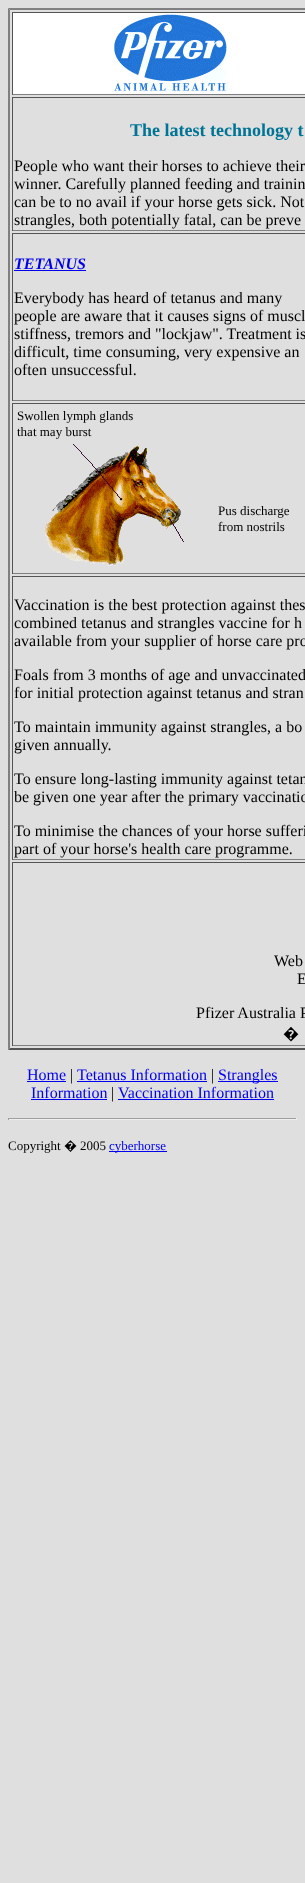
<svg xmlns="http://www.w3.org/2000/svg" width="305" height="1883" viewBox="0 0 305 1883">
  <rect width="100%" height="100%" fill="#dfdfdf"/>
  <path d="M8 8H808L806 10H10Z" fill="#808080"/>
  <path d="M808 1050H8L10 1048H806Z" fill="#555555"/>
  <path d="M8 1050V8L10 10V1048Z" fill="#808080"/>
  <rect x="13" y="13" width="292" height="81" fill="#ffffff"/>
  <rect x="12" y="12" width="293" height="1" fill="#555555"/>
  <rect x="12" y="94" width="293" height="1" fill="#808080"/>
  <rect x="12" y="12" width="1" height="83" fill="#555555"/>
  <image x="114" y="14" width="114" height="79" href="img1.png"/>
  <rect x="12" y="97" width="293" height="1" fill="#555555"/>
  <rect x="12" y="230" width="293" height="1" fill="#808080"/>
  <rect x="12" y="97" width="1" height="134" fill="#555555"/>
  <text x="130" y="136" font-family="Liberation Serif" font-size="18" font-weight="bold" fill="#007495">The latest technology t</text>
  <text x="14" y="171" font-family="Liberation Serif" font-size="16" fill="#000000">People who want their horses to achieve their</text>
  <text x="14" y="189" font-family="Liberation Serif" font-size="16" fill="#000000">winner. Carefully planned feeding and trainin</text>
  <text x="14" y="207" font-family="Liberation Serif" font-size="16" fill="#000000">can be to no avail if your horse gets sick. Not</text>
  <text x="14" y="225" font-family="Liberation Serif" font-size="16" fill="#000000">strangles, both potentially fatal, can be preve</text>
  <rect x="12" y="233" width="293" height="1" fill="#555555"/>
  <rect x="12" y="400" width="293" height="1" fill="#808080"/>
  <rect x="12" y="233" width="1" height="168" fill="#555555"/>
  <text x="14" y="269" font-family="Liberation Serif" font-size="16" font-weight="bold" font-style="italic" fill="#0000ee">TETANUS</text>
  <rect x="14" y="270" width="72" height="1" fill="#0000ee"/>
  <text x="14" y="303" font-family="Liberation Serif" font-size="16" fill="#000000">Everybody has heard of tetanus and many</text>
  <text x="14" y="321" font-family="Liberation Serif" font-size="16" fill="#000000">people are aware that it causes signs of muscl</text>
  <text x="14" y="339" font-family="Liberation Serif" font-size="16" fill="#000000">stiffness, tremors and "lockjaw". Treatment is</text>
  <text x="14" y="357" font-family="Liberation Serif" font-size="16" fill="#000000">difficult, time consuming, very expensive an</text>
  <text x="14" y="375" font-family="Liberation Serif" font-size="16" fill="#000000">often unsuccessful.</text>
  <rect x="12" y="403" width="293" height="1" fill="#555555"/>
  <rect x="12" y="573" width="293" height="1" fill="#808080"/>
  <rect x="12" y="403" width="1" height="171" fill="#555555"/>
  <text x="17" y="420" font-family="Liberation Serif" font-size="13" fill="#000000">Swollen lymph glands</text>
  <text x="17" y="436" font-family="Liberation Serif" font-size="13" fill="#000000">that may burst</text>
  <image x="44" y="444" width="140" height="122" href="img2.png"/>
  <text x="218" y="515" font-family="Liberation Serif" font-size="13" fill="#000000">Pus discharge</text>
  <text x="218" y="531" font-family="Liberation Serif" font-size="13" fill="#000000">from nostrils</text>
  <rect x="12" y="576" width="293" height="1" fill="#555555"/>
  <rect x="12" y="859" width="293" height="1" fill="#808080"/>
  <rect x="12" y="576" width="1" height="284" fill="#555555"/>
  <text x="14" y="610" font-family="Liberation Serif" font-size="16" fill="#000000">Vaccination is the best protection against thes</text>
  <text x="14" y="628" font-family="Liberation Serif" font-size="16" fill="#000000">combined tetanus and strangles vaccine for h</text>
  <text x="14" y="646" font-family="Liberation Serif" font-size="16" fill="#000000">available from your supplier of horse care pro</text>
  <text x="14" y="680" font-family="Liberation Serif" font-size="16" fill="#000000">Foals from 3 months of age and unvaccinated</text>
  <text x="14" y="698" font-family="Liberation Serif" font-size="16" fill="#000000">for initial protection against tetanus and stran</text>
  <text x="14" y="732" font-family="Liberation Serif" font-size="16" fill="#000000">To maintain immunity against strangles, a bo</text>
  <text x="14" y="750" font-family="Liberation Serif" font-size="16" fill="#000000">given annually.</text>
  <text x="14" y="784" font-family="Liberation Serif" font-size="16" fill="#000000">To ensure long-lasting immunity against tetan</text>
  <text x="14" y="802" font-family="Liberation Serif" font-size="16" fill="#000000">be given one year after the primary vaccinatio</text>
  <text x="14" y="836" font-family="Liberation Serif" font-size="16" fill="#000000">To minimise the chances of your horse sufferi</text>
  <text x="14" y="854" font-family="Liberation Serif" font-size="16" fill="#000000">part of your horse's health care programme.</text>
  <rect x="12" y="862" width="293" height="1" fill="#555555"/>
  <rect x="12" y="1045" width="293" height="1" fill="#808080"/>
  <rect x="12" y="862" width="1" height="184" fill="#555555"/>
  <text x="274" y="966" font-family="Liberation Serif" font-size="16" fill="#000000">Web</text>
  <text x="297" y="984" font-family="Liberation Serif" font-size="16" fill="#000000">E</text>
  <text x="196" y="1018" font-family="Liberation Serif" font-size="16" fill="#000000">Pfizer Australia P</text>
  <text x="283" y="1039" font-family="Noto Sans" font-size="16" fill="#000000">�</text>
  <text x="27" y="1080" font-family="Liberation Serif" font-size="16" fill="#0000ee">Home</text>
  <rect x="27" y="1081" width="39" height="1" fill="#0000ee"/>
  <text x="70" y="1080" font-family="Liberation Serif" font-size="16" fill="#000000">|</text>
  <text x="77" y="1080" font-family="Liberation Serif" font-size="16" fill="#0000ee">Tetanus Information</text>
  <rect x="77" y="1081" width="130" height="1" fill="#0000ee"/>
  <text x="211" y="1080" font-family="Liberation Serif" font-size="16" fill="#000000">|</text>
  <rect x="218" y="1081" width="60" height="1" fill="#0000ee"/>
  <text x="218" y="1080" font-family="Liberation Serif" font-size="16" fill="#0000ee">Strangles</text>
  <text x="31" y="1098" font-family="Liberation Serif" font-size="16" fill="#0000ee">Information</text>
  <rect x="31" y="1099" width="76" height="1" fill="#0000ee"/>
  <text x="111" y="1098" font-family="Liberation Serif" font-size="16" fill="#000000">|</text>
  <text x="118" y="1098" font-family="Liberation Serif" font-size="16" fill="#0000ee">Vaccination Information</text>
  <rect x="118" y="1099" width="156" height="1" fill="#0000ee"/>
  <rect x="8" y="1118" width="289" height="1" fill="#9f9f9f"/>
  <rect x="296" y="1118" width="1" height="2" fill="#eeeeee"/>
  <rect x="8" y="1119" width="289" height="1" fill="#eeeeee"/>
  <rect x="8" y="1118" width="1" height="2" fill="#9f9f9f"/>
  <text x="8" y="1150" font-family="Liberation Serif" font-size="13" fill="#000000">Copyright</text>
  <text x="64" y="1150" font-family="Noto Sans" font-size="13" fill="#000000">�</text>
  <text x="80" y="1150" font-family="Liberation Serif" font-size="13" fill="#000000">2005</text>
  <rect x="109" y="1151" width="58" height="1" fill="#0000ee"/>
  <text x="109" y="1150" font-family="Liberation Serif" font-size="13" fill="#0000ee">cyberhorse</text>
</svg>
